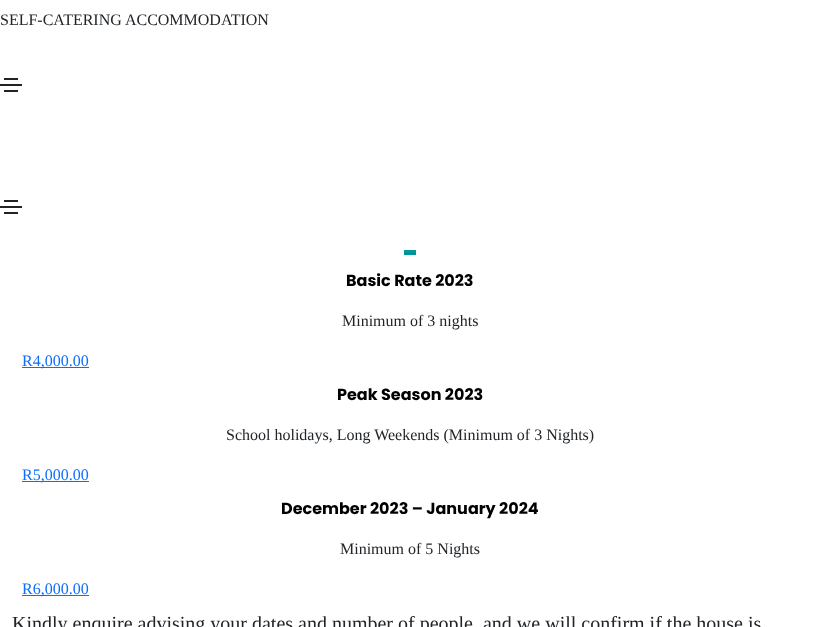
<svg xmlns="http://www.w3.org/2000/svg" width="820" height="627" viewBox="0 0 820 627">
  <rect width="100%" height="100%" fill="#ffffff"/>
  <text x="0" y="25" font-family="Liberation Serif" font-size="16" fill="#212529">SELF-CATERING ACCOMMODATION</text>
  <rect x="4" y="78" width="14" height="2" fill="#232323"/>
  <rect x="0" y="84" width="22" height="2" fill="#232323"/>
  <rect x="4" y="90" width="14" height="2" fill="#232323"/>
  <rect x="4" y="200" width="14" height="2" fill="#232323"/>
  <rect x="0" y="206" width="22" height="2" fill="#232323"/>
  <rect x="4" y="212" width="14" height="2" fill="#232323"/>
  <rect x="404" y="250" width="12" height="5" fill="#04999f"/>
  <rect x="404" y="253" width="12" height="1" fill="#0d6efd"/>
  <text x="346" y="286" font-family="Poppins" font-size="16" font-weight="bold" fill="#000000">Basic Rate 2023</text>
  <text x="342" y="326" font-family="Liberation Serif" font-size="16" fill="#212529">Minimum of 3 nights</text>
  <rect x="22" y="367" width="67" height="1" fill="#0d6efd"/>
  <text x="22" y="366" font-family="Liberation Serif" font-size="16" fill="#0d6efd">R4,000.00</text>
  <text x="337" y="400" font-family="Poppins" font-size="16" font-weight="bold" fill="#000000">Peak Season 2023</text>
  <text x="226" y="440" font-family="Liberation Serif" font-size="16" fill="#212529">School holidays, Long Weekends (Minimum of 3 Nights)</text>
  <rect x="22" y="481" width="67" height="1" fill="#0d6efd"/>
  <text x="22" y="480" font-family="Liberation Serif" font-size="16" fill="#0d6efd">R5,000.00</text>
  <text x="281" y="514" font-family="Poppins" font-size="16" font-weight="bold" fill="#000000">December 2023 – January 2024</text>
  <text x="340" y="554" font-family="Liberation Serif" font-size="16" fill="#212529">Minimum of 5 Nights</text>
  <rect x="22" y="595" width="67" height="1" fill="#0d6efd"/>
  <text x="22" y="594" font-family="Liberation Serif" font-size="16" fill="#0d6efd">R6,000.00</text>
  <text x="12" y="630" font-family="Liberation Serif" font-size="20" fill="#212529">Kindly enquire advising your dates and number of people, and we will confirm if the house is</text>
</svg>
